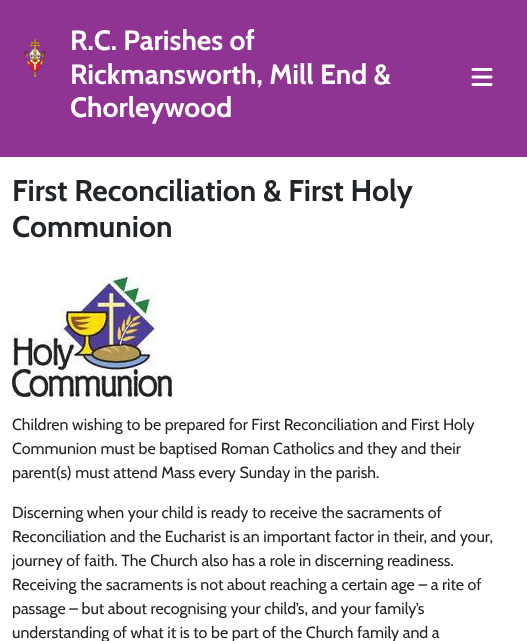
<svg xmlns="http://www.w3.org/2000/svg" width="527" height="641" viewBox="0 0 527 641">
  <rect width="100%" height="100%" fill="#ffffff"/>
  <rect x="0" y="0" width="527" height="157" fill="#8f3493"/>
  <image x="24" y="39" width="22" height="38" href="img1.png"/>
  <text x="70" y="50" font-family="Cabin" font-size="28" font-weight="bold" fill="#ffffff">R.C. Parishes of</text>
  <text x="70" y="84" font-family="Cabin" font-size="28" font-weight="bold" fill="#ffffff">Rickmansworth, Mill End &amp;</text>
  <text x="70" y="117" font-family="Cabin" font-size="28" font-weight="bold" fill="#ffffff">Chorleywood</text>
  <image x="471" y="68" width="22" height="18" href="img2.png"/>
  <text x="12" y="201" font-family="Cabin" font-size="29.9" font-weight="bold" fill="#212529">First Reconciliation &amp; First Holy</text>
  <text x="12" y="237" font-family="Cabin" font-size="29.9" font-weight="bold" fill="#212529">Communion</text>
  <image x="12" y="277" width="160" height="120" href="img3.png"/>
  <text x="12" y="430" font-family="Cabin" font-size="16" fill="#212529">Children wishing to be prepared for First Reconciliation and First Holy</text>
  <text x="12" y="454" font-family="Cabin" font-size="16" fill="#212529">Communion must be baptised Roman Catholics and they and their</text>
  <text x="12" y="478" font-family="Cabin" font-size="16" fill="#212529">parent(s) must attend Mass every Sunday in the parish.</text>
  <text x="12" y="518" font-family="Cabin" font-size="16" fill="#212529">Discerning when your child is ready to receive the sacraments of</text>
  <text x="12" y="542" font-family="Cabin" font-size="16" fill="#212529">Reconciliation and the Eucharist is an important factor in their, and your,</text>
  <text x="12" y="566" font-family="Cabin" font-size="16" fill="#212529">journey of faith. The Church also has a role in discerning readiness.</text>
  <text x="12" y="590" font-family="Cabin" font-size="16" fill="#212529">Receiving the sacraments is not about reaching a certain age – a rite of</text>
  <text x="12" y="614" font-family="Cabin" font-size="16" fill="#212529">passage – but about recognising your child’s, and your family’s</text>
  <text x="12" y="638" font-family="Cabin" font-size="16" fill="#212529">understanding of what it is to be part of the Church family and a</text>
</svg>
